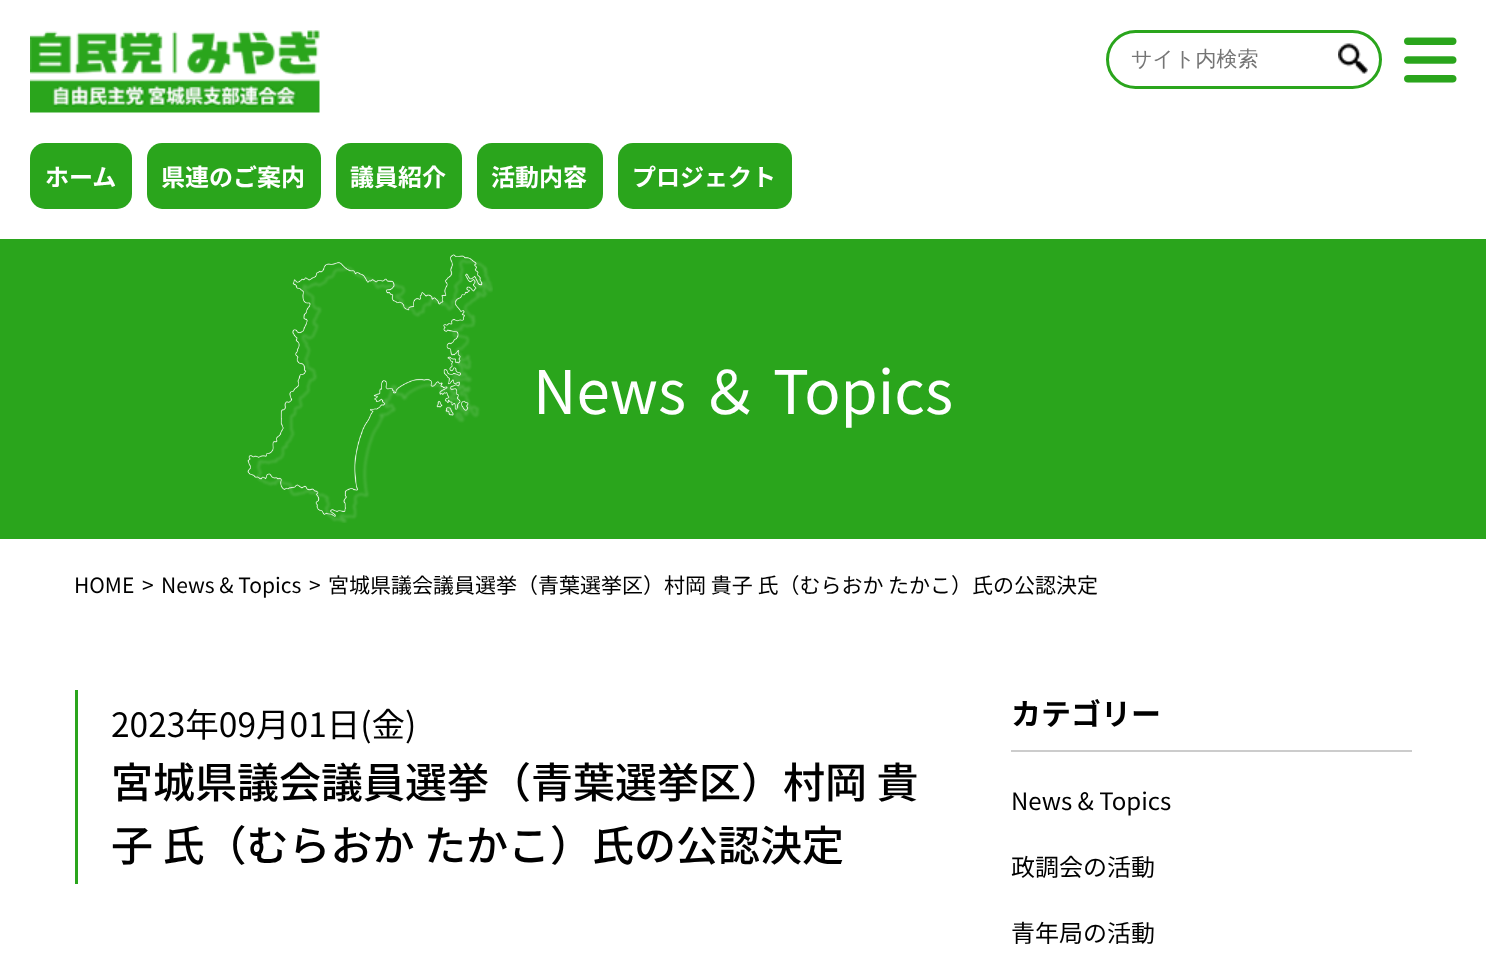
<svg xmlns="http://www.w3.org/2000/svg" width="1486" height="954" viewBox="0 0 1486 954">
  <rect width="100%" height="100%" fill="#ffffff"/>
  <image x="30" y="30" width="290" height="83" href="img1.png"/>
  <rect x="1107.5" y="31.5" width="273" height="56" rx="28" fill="none" stroke="#2aa51c" stroke-width="3"/>
  <text x="1131" y="66" font-family="WenQuanYi Zen Hei" font-size="21" font-weight="500" fill="#757575">サイト内検索</text>
  <image x="1338" y="43" width="30" height="31" href="img2.png"/>
  <image x="1404" y="37" width="53" height="46" href="img3.png"/>
  <rect x="30" y="143" width="102" height="66" rx="15" fill="#2aa51c"/>
  <text x="45" y="186" font-family="Noto Sans JP" font-size="24" font-weight="bold" fill="#ffffff">ホーム</text>
  <rect x="147" y="143" width="174" height="66" rx="15" fill="#2aa51c"/>
  <text x="161" y="186" font-family="Noto Sans JP" font-size="24" font-weight="bold" fill="#ffffff">県連のご案内</text>
  <rect x="336" y="143" width="126" height="66" rx="15" fill="#2aa51c"/>
  <text x="350" y="186" font-family="Noto Sans JP" font-size="24" font-weight="bold" fill="#ffffff">議員紹介</text>
  <rect x="477" y="143" width="126" height="66" rx="15" fill="#2aa51c"/>
  <text x="491" y="186" font-family="Noto Sans JP" font-size="24" font-weight="bold" fill="#ffffff">活動内容</text>
  <rect x="618" y="143" width="174" height="66" rx="15" fill="#2aa51c"/>
  <text x="632" y="186" font-family="Noto Sans JP" font-size="24" font-weight="bold" fill="#ffffff">プロジェクト</text>
  <rect x="0" y="239" width="1486" height="300" fill="#2aa51c"/>
  <image x="247" y="254" width="246" height="269" href="img4.png"/>
  <text x="533" y="414" font-family="Noto Sans JP" font-size="60" fill="#ffffff">News ＆ Topics</text>
  <text x="74" y="593" font-family="Noto Sans JP" font-size="21" fill="#000000">HOME</text>
  <text x="142" y="593" font-family="Noto Sans JP" font-size="21" fill="#000000">&gt;</text>
  <text x="161" y="593" font-family="Noto Sans JP" font-size="21" fill="#000000">News &amp; Topics</text>
  <text x="309" y="593" font-family="Noto Sans JP" font-size="21" fill="#000000">&gt;</text>
  <text x="328" y="593" font-family="Noto Sans JP" font-size="21" fill="#000000">宮城県議会議員選挙（青葉選挙区）村岡 貴子 氏（むらおか たかこ）氏の公認決定</text>
  <rect x="75" y="690" width="3" height="194" fill="#2aa51c"/>
  <text x="111" y="737" font-family="Noto Sans JP" font-size="33.5" fill="#000000">2023年09月01日(金)</text>
  <text x="111" y="798" font-family="Noto Sans JP" font-size="42" font-weight="500" fill="#000000">宮城県議会議員選挙（青葉選挙区）村岡 貴</text>
  <text x="111" y="861" font-family="Noto Sans JP" font-size="42" font-weight="500" fill="#000000">子 氏（むらおか たかこ）氏の公認決定</text>
  <rect x="1011" y="750" width="401" height="2" fill="#cccccc"/>
  <text x="1011" y="725" font-family="Noto Sans JP" font-size="30" font-weight="bold" fill="#000000">カテゴリー</text>
  <text x="1011" y="810" font-family="Noto Sans JP" font-size="24" fill="#000000">News &amp; Topics</text>
  <text x="1011" y="876" font-family="Noto Sans JP" font-size="24" fill="#000000">政調会の活動</text>
  <text x="1011" y="942" font-family="Noto Sans JP" font-size="24" fill="#000000">青年局の活動</text>
</svg>
